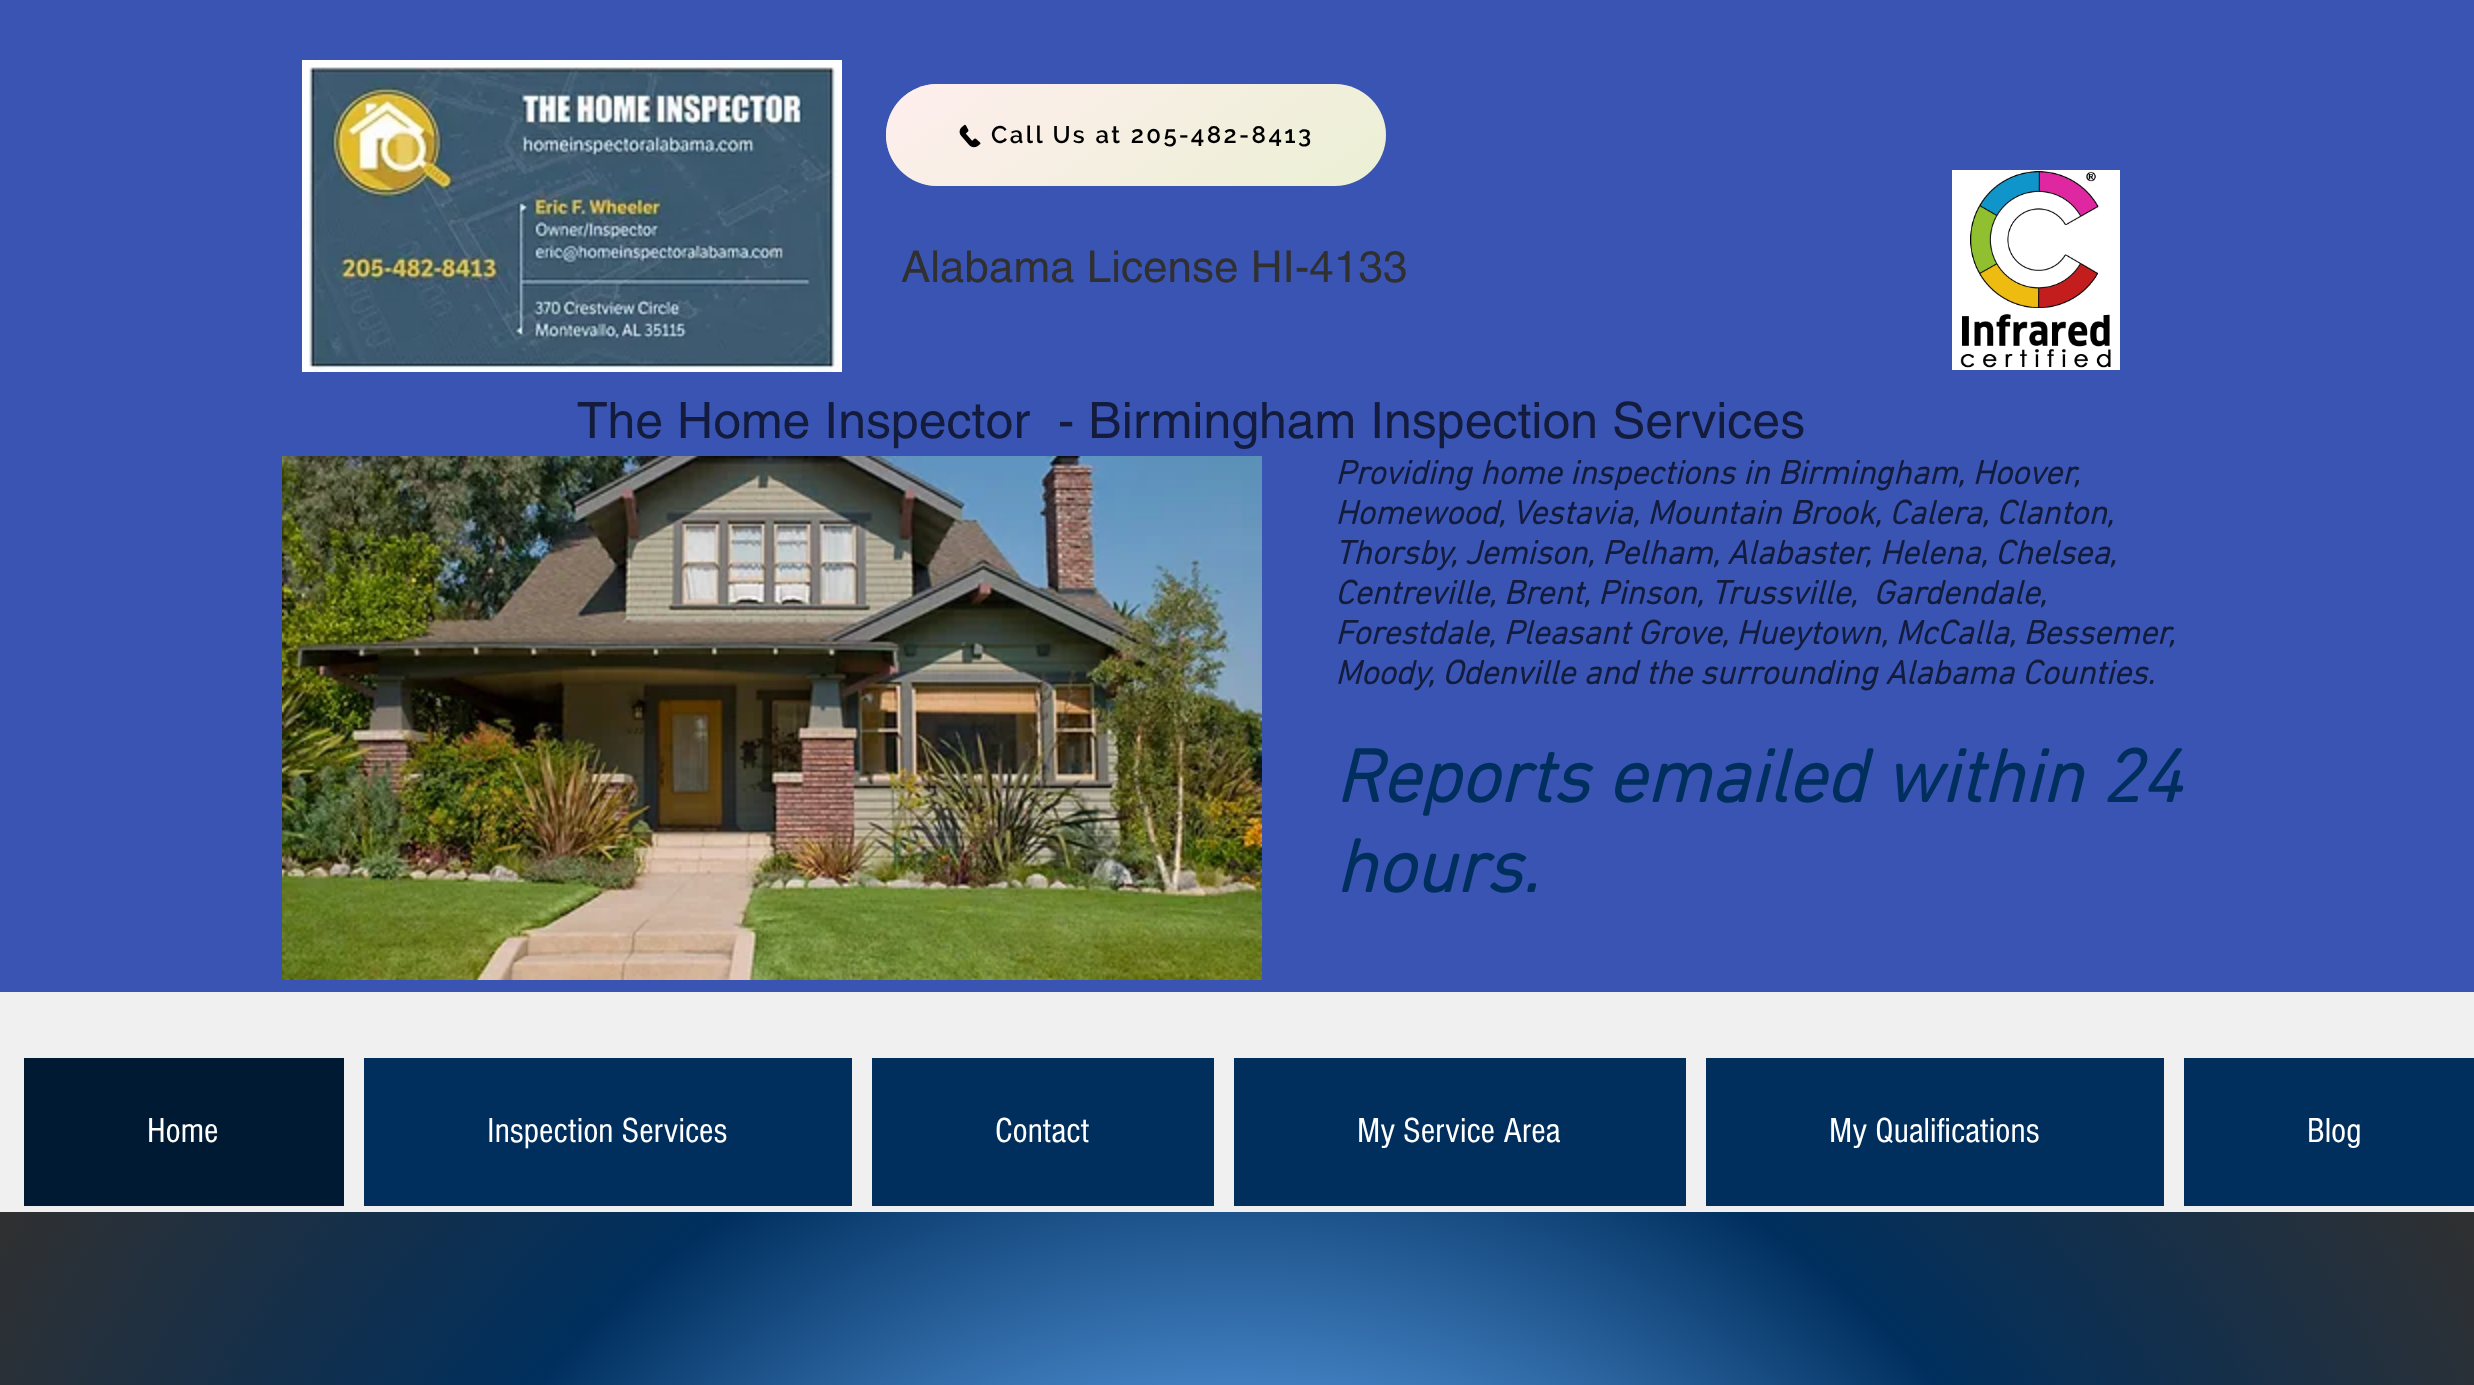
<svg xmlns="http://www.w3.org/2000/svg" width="2474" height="1385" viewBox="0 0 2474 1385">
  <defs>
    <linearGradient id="g1" gradientUnits="userSpaceOnUse" x1="1030" y1="-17" x2="1242" y2="287"><stop offset="0" stop-color="#ffeeee"/><stop offset="1" stop-color="#ffeeee" stop-opacity="0"/></linearGradient>
    <radialGradient id="g2" gradientUnits="userSpaceOnUse" cx="1237" cy="1972" r="1452"><stop offset="0" stop-color="#e4ebfc"/><stop offset="0.32" stop-color="#589be3"/><stop offset="0.63" stop-color="#002f5e"/><stop offset="1" stop-color="#303030"/></radialGradient>
  </defs>
  <rect width="100%" height="100%" fill="#f0f0f0"/>
  <rect x="0" y="0" width="2474" height="992" fill="#3a54b4"/>
  <image x="302" y="60" width="540" height="312" href="img1.png"/>
  <rect x="886" y="84" width="500" height="102" rx="51" fill="#ebf0d4"/>
  <rect x="886" y="84" width="500" height="102" rx="51" fill="url(#g1)"/>
  <image x="959" y="124" width="22" height="24" href="img2.png"/>
  <text x="991" y="143" font-family="Raleway" font-size="24" font-weight="600" letter-spacing="2.4" fill="#000000">Call Us at 205-482-8413</text>
  <text x="901" y="282" font-family="helvetica" font-size="44" fill="#303030">Alabama License HI-4133</text>
  <image x="1952" y="170" width="168" height="200" href="img3.png"/>
  <text x="577" y="438" font-family="helvetica" font-size="50" fill="#131c3c" xml:space="preserve">The Home Inspector  - Birmingham Inspection Services</text>
  <image x="282" y="456" width="980" height="524" href="img4.png"/>
  <text x="1335" y="484" font-family="'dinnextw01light'" font-size="34" font-weight="bold" font-style="italic" fill="#131c3c">Providing home inspections in Birmingham, Hoover,</text>
  <text x="1335" y="524" font-family="'dinnextw01light'" font-size="34" font-weight="bold" font-style="italic" fill="#131c3c">Homewood, Vestavia, Mountain Brook, Calera, Clanton,</text>
  <text x="1335" y="564" font-family="'dinnextw01light'" font-size="34" font-weight="bold" font-style="italic" fill="#131c3c">Thorsby, Jemison, Pelham, Alabaster, Helena, Chelsea,</text>
  <text x="1335" y="604" font-family="'dinnextw01light'" font-size="34" font-weight="bold" font-style="italic" fill="#131c3c" xml:space="preserve">Centreville, Brent, Pinson, Trussville,  Gardendale,</text>
  <text x="1335" y="644" font-family="'dinnextw01light'" font-size="34" font-weight="bold" font-style="italic" fill="#131c3c">Forestdale, Pleasant Grove, Hueytown, McCalla, Bessemer,</text>
  <text x="1335" y="684" font-family="'dinnextw01light'" font-size="34" font-weight="bold" font-style="italic" fill="#131c3c">Moody, Odenville and the surrounding Alabama Counties.</text>
  <text x="1335" y="802" font-family="'dinnextw01light'" font-size="76" font-weight="bold" font-style="italic" fill="#002e5d">Reports emailed within 24</text>
  <text x="1335" y="892" font-family="'dinnextw01light'" font-size="76" font-weight="bold" font-style="italic" fill="#002e5d">hours.</text>
  <rect x="24" y="1058" width="320" height="148" fill="#001a33"/>
  <text x="147" y="1142" font-family="'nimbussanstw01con'" font-size="36" fill="#ffffff">Home</text>
  <rect x="364" y="1058" width="488" height="148" fill="#002e5d"/>
  <text x="487" y="1142" font-family="'nimbussanstw01con'" font-size="36" fill="#ffffff">Inspection Services</text>
  <rect x="872" y="1058" width="342" height="148" fill="#002e5d"/>
  <text x="995" y="1142" font-family="'nimbussanstw01con'" font-size="36" fill="#ffffff">Contact</text>
  <rect x="1234" y="1058" width="452" height="148" fill="#002e5d"/>
  <text x="1357" y="1142" font-family="'nimbussanstw01con'" font-size="36" fill="#ffffff">My Service Area</text>
  <rect x="1706" y="1058" width="458" height="148" fill="#002e5d"/>
  <text x="1829" y="1142" font-family="'nimbussanstw01con'" font-size="36" fill="#ffffff">My Qualifications</text>
  <rect x="2184" y="1058" width="290" height="148" fill="#002e5d"/>
  <text x="2307" y="1142" font-family="'nimbussanstw01con'" font-size="36" fill="#ffffff">Blog</text>
  <rect x="0" y="1212" width="2474" height="173" fill="url(#g2)"/>
</svg>
